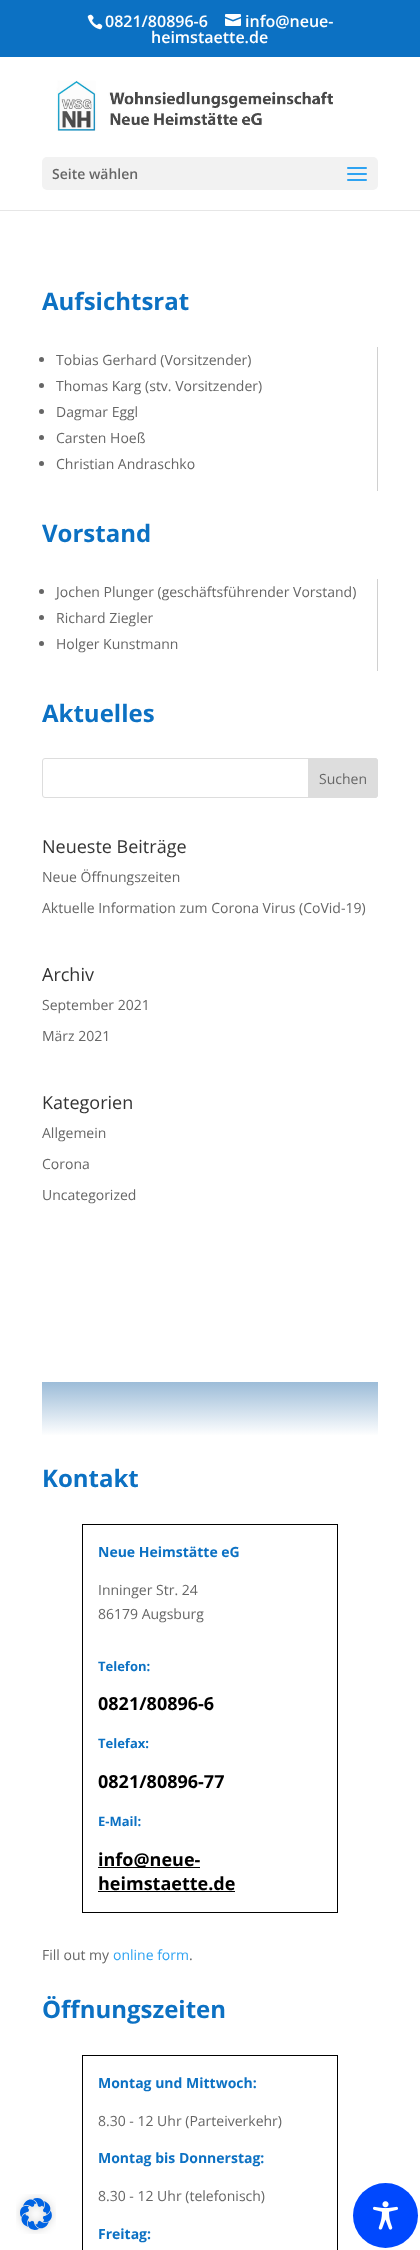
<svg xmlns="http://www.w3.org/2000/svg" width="420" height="2250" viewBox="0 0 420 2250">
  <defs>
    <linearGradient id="g1" gradientUnits="userSpaceOnUse" x1="210" y1="1382" x2="210" y2="1436"><stop offset="0" stop-color="#9cbcd8"/><stop offset="1" stop-color="#ffffff"/></linearGradient>
  </defs>
  <rect width="100%" height="100%" fill="#ffffff"/>
  <image x="16" y="2194" width="40" height="40" href="img1.png"/>
  <rect x="0" y="0" width="420" height="57" fill="#0c71c3"/>
  <image x="87" y="14" width="16" height="16" href="img2.png"/>
  <text x="105" y="27" font-family="Open Sans" font-size="16" font-weight="600" fill="#ffffff">0821/80896-6</text>
  <image x="225" y="14" width="16" height="12" href="img3.png"/>
  <text x="245" y="27" font-family="Open Sans" font-size="16" font-weight="600" fill="#ffffff">info@neue-</text>
  <text x="151" y="43" font-family="Open Sans" font-size="16" font-weight="600" fill="#ffffff">heimstaette.de</text>
  <rect x="0" y="210" width="420" height="1" fill="#e6e6e6"/>
  <image x="56" y="80" width="277" height="51" href="img4.png"/>
  <rect x="42" y="157" width="336" height="33" rx="5" fill="#f2f2f2"/>
  <text x="52" y="179" font-family="Open Sans" font-size="14" font-weight="600" fill="#666666">Seite wählen</text>
  <image x="347" y="167" width="20" height="14" href="img5.png"/>
  <text x="42" y="310" font-family="Open Sans" font-size="24" font-weight="bold" fill="#0c71c3">Aufsichtsrat</text>
  <rect x="377" y="347" width="1" height="144" fill="#d0d0d0"/>
  <circle cx="41.5" cy="359.5" r="2.5" fill="#666666"/>
  <text x="56" y="365" font-family="Open Sans" font-size="14" fill="#666666">Tobias Gerhard (Vorsitzender)</text>
  <circle cx="41.5" cy="385.5" r="2.5" fill="#666666"/>
  <text x="56" y="391" font-family="Open Sans" font-size="14" fill="#666666">Thomas Karg (stv. Vorsitzender)</text>
  <circle cx="41.5" cy="411.5" r="2.5" fill="#666666"/>
  <text x="56" y="417" font-family="Open Sans" font-size="14" fill="#666666">Dagmar Eggl</text>
  <circle cx="41.5" cy="437.5" r="2.5" fill="#666666"/>
  <text x="56" y="443" font-family="Open Sans" font-size="14" fill="#666666">Carsten Hoeß</text>
  <circle cx="41.5" cy="463.5" r="2.5" fill="#666666"/>
  <text x="56" y="469" font-family="Open Sans" font-size="14" fill="#666666">Christian Andraschko</text>
  <text x="42" y="542" font-family="Open Sans" font-size="24" font-weight="bold" fill="#0c71c3">Vorstand</text>
  <rect x="377" y="579" width="1" height="92" fill="#d0d0d0"/>
  <circle cx="41.5" cy="591.5" r="2.5" fill="#666666"/>
  <text x="56" y="597" font-family="Open Sans" font-size="14" fill="#666666">Jochen Plunger (geschäftsführender Vorstand)</text>
  <circle cx="41.5" cy="617.5" r="2.5" fill="#666666"/>
  <text x="56" y="623" font-family="Open Sans" font-size="14" fill="#666666">Richard Ziegler</text>
  <circle cx="41.5" cy="643.5" r="2.5" fill="#666666"/>
  <text x="56" y="649" font-family="Open Sans" font-size="14" fill="#666666">Holger Kunstmann</text>
  <text x="42" y="722" font-family="Open Sans" font-size="24" font-weight="bold" fill="#0c71c3">Aktuelles</text>
  <rect x="42.5" y="758.5" width="335" height="39" rx="2.5" fill="none" stroke="#dddddd"/>
  <path d="M308.5 758.5H375C376.5 758.5 377.5 759.5 377.5 761V795C377.5 796.5 376.5 797.5 375 797.5H308.5Z" fill="#dddddd" stroke="#dddddd"/>
  <text x="319" y="784" font-family="Open Sans" font-size="14" fill="#666666">Suchen</text>
  <text x="42" y="853" font-family="Open Sans" font-size="18" fill="#333333">Neueste Beiträge</text>
  <text x="42" y="882" font-family="Open Sans" font-size="14" fill="#666666">Neue Öffnungszeiten</text>
  <text x="42" y="913" font-family="Open Sans" font-size="14" fill="#666666">Aktuelle Information zum Corona Virus (CoVid-19)</text>
  <text x="42" y="981" font-family="Open Sans" font-size="18" fill="#333333">Archiv</text>
  <text x="42" y="1010" font-family="Open Sans" font-size="14" fill="#666666">September 2021</text>
  <text x="42" y="1041" font-family="Open Sans" font-size="14" fill="#666666">März 2021</text>
  <text x="42" y="1109" font-family="Open Sans" font-size="18" fill="#333333">Kategorien</text>
  <text x="42" y="1138" font-family="Open Sans" font-size="14" fill="#666666">Allgemein</text>
  <text x="42" y="1169" font-family="Open Sans" font-size="14" fill="#666666">Corona</text>
  <text x="42" y="1200" font-family="Open Sans" font-size="14" fill="#666666">Uncategorized</text>
  <rect x="42" y="1382" width="336" height="53" fill="url(#g1)"/>
  <text x="42" y="1487" font-family="Open Sans" font-size="24" font-weight="bold" fill="#0c71c3">Kontakt</text>
  <rect x="82.5" y="1524.5" width="255" height="388" fill="none" stroke="#000000"/>
  <text x="98" y="1557" font-family="Open Sans" font-size="14" font-weight="bold" fill="#0c71c3">Neue Heimstätte eG</text>
  <text x="98" y="1595" font-family="Open Sans" font-size="14" fill="#666666">Inninger Str. 24</text>
  <text x="98" y="1619" font-family="Open Sans" font-size="14" fill="#666666">86179 Augsburg</text>
  <text x="98" y="1671" font-family="Open Sans" font-size="13" font-weight="bold" fill="#0c71c3">Telefon:</text>
  <text x="98" y="1710" font-family="Open Sans" font-size="18" font-weight="bold" fill="#000000">0821/80896-6</text>
  <text x="98" y="1748" font-family="Open Sans" font-size="13" font-weight="bold" fill="#0c71c3">Telefax:</text>
  <text x="98" y="1788" font-family="Open Sans" font-size="18" font-weight="bold" fill="#000000">0821/80896-77</text>
  <text x="98" y="1826" font-family="Open Sans" font-size="13" font-weight="bold" fill="#0c71c3">E-Mail:</text>
  <rect x="98" y="1867" width="102" height="1" fill="#000000"/>
  <text x="98" y="1866" font-family="Open Sans" font-size="18" font-weight="bold" fill="#000000">info@neue-</text>
  <text x="98" y="1890" font-family="Open Sans" font-size="18" font-weight="bold" fill="#000000">heimstaette.de</text>
  <rect x="98" y="1891" width="137" height="1" fill="#000000"/>
  <text x="42" y="1960" font-family="Open Sans" font-size="14" fill="#666666">Fill out my</text>
  <text x="113" y="1960" font-family="Open Sans" font-size="14" fill="#2ea3f2">online form</text>
  <text x="189" y="1960" font-family="Open Sans" font-size="14" fill="#666666">.</text>
  <text x="42" y="2018" font-family="Open Sans" font-size="24" font-weight="bold" fill="#0c71c3">Öffnungszeiten</text>
  <rect x="82.5" y="2055.5" width="255" height="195" fill="none" stroke="#000000"/>
  <text x="98" y="2088" font-family="Open Sans" font-size="14" font-weight="bold" fill="#0c71c3">Montag und Mittwoch:</text>
  <text x="98" y="2126" font-family="Open Sans" font-size="14" fill="#666666">8.30 - 12 Uhr (Parteiverkehr)</text>
  <text x="98" y="2163" font-family="Open Sans" font-size="14" font-weight="bold" fill="#0c71c3">Montag bis Donnerstag:</text>
  <text x="98" y="2201" font-family="Open Sans" font-size="14" fill="#666666">8.30 - 12 Uhr (telefonisch)</text>
  <text x="98" y="2239" font-family="Open Sans" font-size="14" font-weight="bold" fill="#0c71c3">Freitag:</text>
  <circle cx="385.5" cy="2215.5" r="32.5" fill="#0048fe"/>
  <image x="373" y="2201" width="25" height="29" href="img6.png"/>
</svg>
